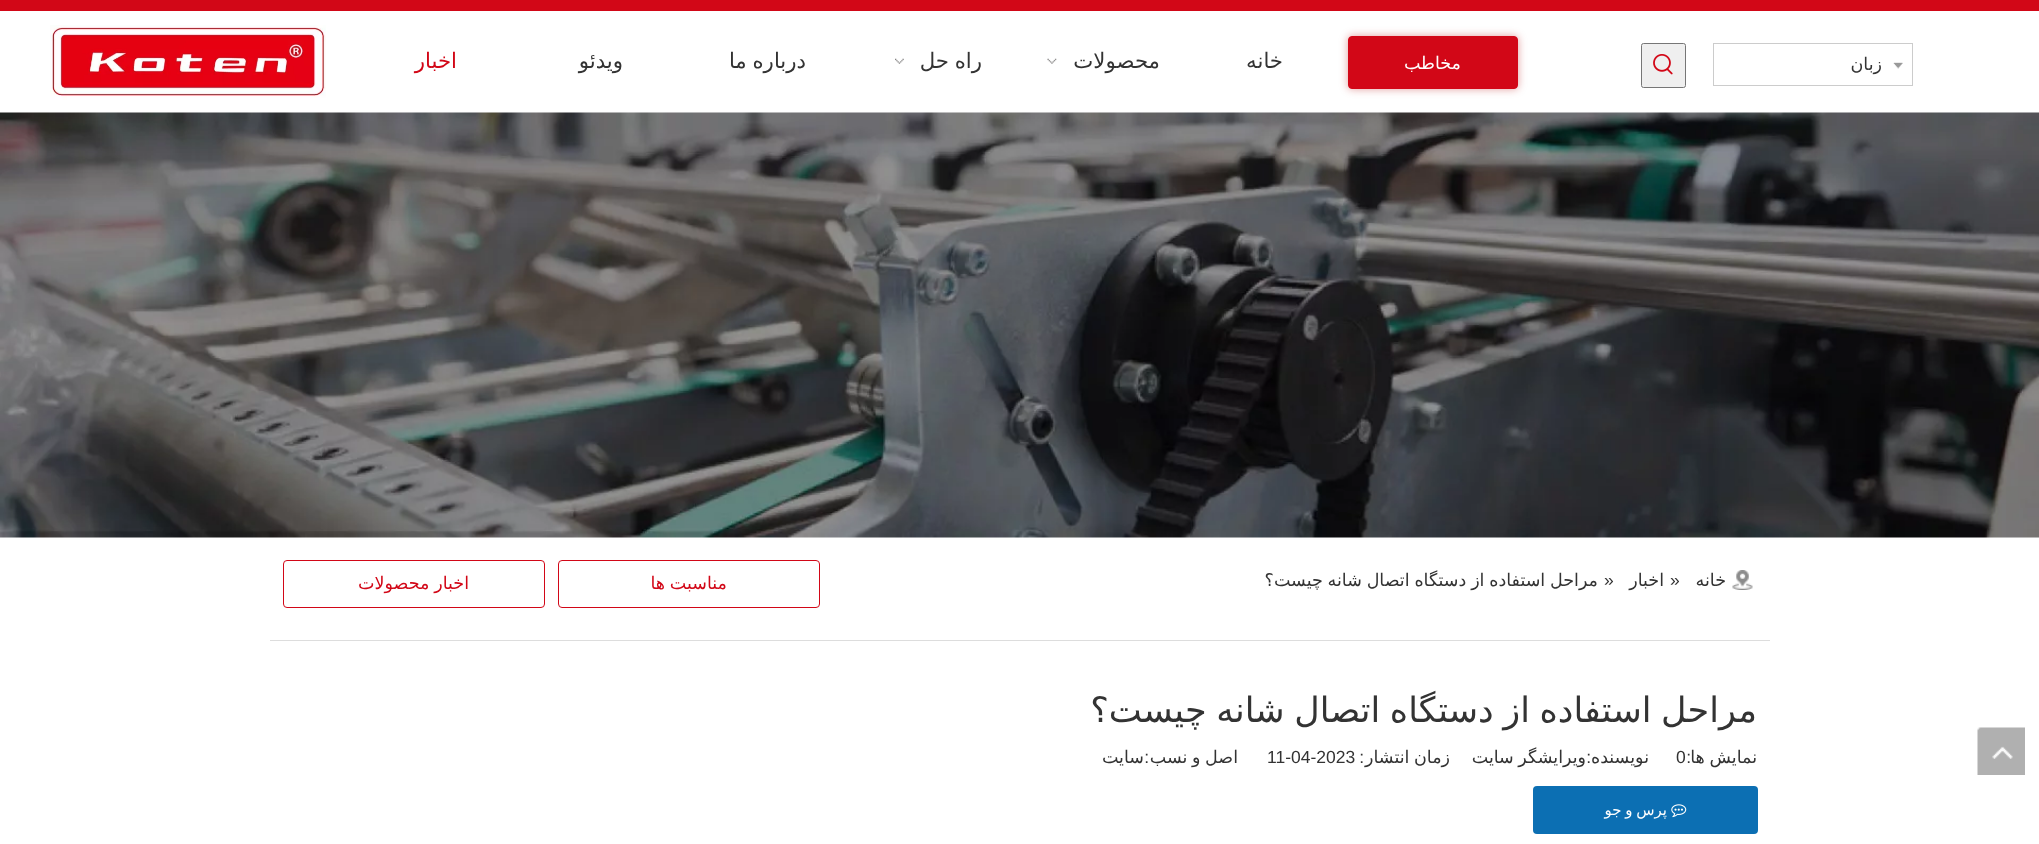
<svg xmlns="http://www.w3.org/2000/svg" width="2039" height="844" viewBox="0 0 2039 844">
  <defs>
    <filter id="blur1" x="-50%" y="-200%" width="200%" height="500%"><feGaussianBlur stdDeviation="4.5"/></filter>
    <clipPath id="clip1"><rect x="283" y="679" width="1475" height="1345"/></clipPath>
  </defs>
  <rect width="100%" height="100%" fill="#ffffff"/>
  <rect x="0" y="0" width="2039" height="11" fill="#d20717"/>
  <rect x="1713.5" y="43.5" width="199" height="42" fill="none" stroke="#cccccc"/>
  <image x="1893" y="62" width="10" height="7" href="img1.png"/>
  <text x="1882" y="70" font-family="DejaVu Sans" font-size="17.5" direction="rtl" fill="#333333">زبان</text>
  <rect x="1641.5" y="43.5" width="44" height="44" rx="2" fill="#efefef" stroke="#767676"/>
  <image x="1653" y="54" width="20" height="21" href="img2.png"/>
  <rect x="1348" y="36" width="170" height="53" rx="4" fill="#b40714" fill-opacity="0.39" filter="url(#blur1)"/>
  <rect x="1348.5" y="36.5" width="169" height="52" rx="3.5" fill="#d20717" stroke="#d20717"/>
  <text x="1461" y="69" font-family="DejaVu Sans" font-size="17.5" direction="rtl" fill="#ffffff">مخاطب</text>
  <text x="1283" y="68" font-family="DejaVu Sans" font-size="21.25" direction="rtl" fill="#333333">خانه</text>
  <text x="1160" y="68" font-family="DejaVu Sans" font-size="21.25" direction="rtl" fill="#333333">محصولات</text>
  <image x="1047" y="58" width="10" height="6" href="img3.png"/>
  <text x="982" y="68" word-spacing="-1" font-family="DejaVu Sans" font-size="21.25" direction="rtl" fill="#333333">راه حل</text>
  <image x="895" y="58" width="9" height="6" href="img4.png"/>
  <text x="806" y="68" word-spacing="-1" font-family="DejaVu Sans" font-size="21.25" direction="rtl" fill="#333333">درباره ما</text>
  <text x="623" y="68" font-family="DejaVu Sans" font-size="21.25" direction="rtl" fill="#333333">ویدئو</text>
  <text x="457" y="68" font-family="DejaVu Sans" font-size="21.25" direction="rtl" fill="#d20717">اخبار</text>
  <image x="50" y="25" width="276" height="75" href="img5.png"/>
  <image x="1977" y="727" width="48" height="48" href="img6.png"/>
  <image x="0" y="112" width="2039" height="426" href="img7.png"/>
  <rect x="270" y="640" width="1500" height="1" fill="#dddddd"/>
  <image x="1732" y="570" width="21" height="20" href="img8.png"/>
  <text x="1726" y="586" font-family="DejaVu Sans" font-size="17.5" direction="rtl" fill="#333333">خانه</text>
  <text x="1670" y="586" font-family="Liberation Sans" font-size="17.5" fill="#333333">»</text>
  <text x="1664" y="586" font-family="DejaVu Sans" font-size="17.5" direction="rtl" fill="#333333">اخبار</text>
  <text x="1604" y="586" font-family="Liberation Sans" font-size="17.5" fill="#333333">»</text>
  <text x="1598" y="586" word-spacing="-0.75" font-family="DejaVu Sans" font-size="17.5" direction="rtl" fill="#333333">مراحل استفاده از دستگاه اتصال شانه چیست؟</text>
  <rect x="558.5" y="560.5" width="261" height="47" rx="3.5" fill="none" stroke="#d20717"/>
  <text x="727" y="589" word-spacing="-0.75" font-family="DejaVu Sans" font-size="17.5" direction="rtl" fill="#d20717">مناسبت ها</text>
  <rect x="283.5" y="560.5" width="261" height="47" rx="3.5" fill="none" stroke="#d20717"/>
  <text x="469" y="589" word-spacing="-0.75" font-family="DejaVu Sans" font-size="17.5" direction="rtl" fill="#d20717">اخبار محصولات</text>
  <g clip-path="url(#clip1)">
    <text x="1757" y="722" word-spacing="-1.5" font-family="DejaVu Sans" font-size="35" direction="rtl" fill="#333333">مراحل استفاده از دستگاه اتصال شانه چیست؟</text>
  </g>
  <text x="1757" y="763" word-spacing="-0.75" font-family="DejaVu Sans" font-size="17.5" direction="rtl" fill="#333333">نمایش ها</text>
  <text x="1691" y="763" font-family="Liberation Sans" font-size="17.5" direction="rtl" fill="#333333">:</text>
  <text x="1676" y="763" font-family="Liberation Sans" font-size="17.5" fill="#333333">0</text>
  <text x="1649" y="763" font-family="DejaVu Sans" font-size="17.5" direction="rtl" fill="#333333">نویسنده</text>
  <text x="1591" y="763" font-family="Liberation Sans" font-size="17.5" direction="rtl" fill="#333333">:</text>
  <text x="1586" y="763" word-spacing="-1" font-family="DejaVu Sans" font-size="17.5" direction="rtl" fill="#333333">ویرایشگر سایت</text>
  <text x="1450" y="763" word-spacing="-1" font-family="DejaVu Sans" font-size="17.5" direction="rtl" fill="#333333">زمان انتشار</text>
  <text x="1364" y="763" font-family="Liberation Sans" font-size="17.5" direction="rtl" fill="#333333">:</text>
  <text x="1267" y="763" font-family="Liberation Sans" font-size="17.5" fill="#333333">11-04-2023</text>
  <text x="1238" y="763" word-spacing="-1" font-family="DejaVu Sans" font-size="17.5" direction="rtl" fill="#333333">اصل و نسب</text>
  <text x="1149" y="763" font-family="Liberation Sans" font-size="17.5" direction="rtl" fill="#333333">:</text>
  <text x="1144" y="763" font-family="DejaVu Sans" font-size="17.5" direction="rtl" fill="#333333">سایت</text>
  <rect x="1533" y="786" width="225" height="48" rx="4" fill="#0c6fb3"/>
  <image x="1671" y="804" width="16" height="14" href="img9.png"/>
  <text x="1667" y="815" word-spacing="-1" font-family="DejaVu Sans" font-size="15" direction="rtl" fill="#ffffff">پرس و جو</text>
</svg>
